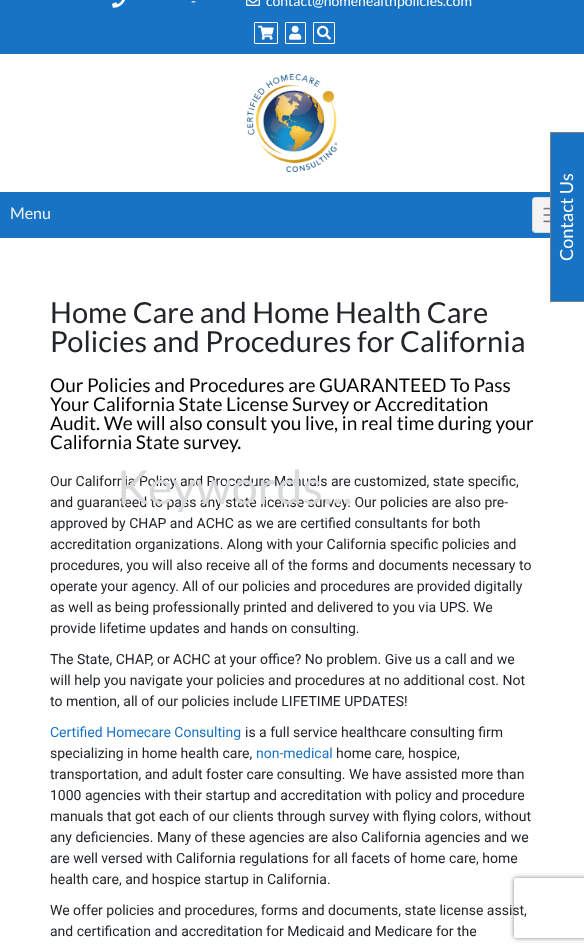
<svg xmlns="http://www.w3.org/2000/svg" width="584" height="952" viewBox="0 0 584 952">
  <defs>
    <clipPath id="clip1"><path d="M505 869H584V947H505ZM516 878H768C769 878 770 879 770 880V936C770 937 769 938 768 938H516C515 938 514 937 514 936V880C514 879 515 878 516 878Z" clip-rule="evenodd"/></clipPath>
    <filter id="blur1" x="-50%" y="-200%" width="200%" height="500%"><feGaussianBlur stdDeviation="2.5"/></filter>
  </defs>
  <rect width="100%" height="100%" fill="#ffffff"/>
  <rect x="0" y="0" width="584" height="54" fill="#1873c5"/>
  <image x="112" y="0" width="13" height="8" href="img1.png"/>
  <text x="191" y="6" font-family="Lato" font-size="14" fill="#ffffff">-</text>
  <image x="246" y="0" width="14" height="6" href="img2.png"/>
  <text x="266" y="6" font-family="Lato" font-size="14" fill="#ffffff">contact@homehealthpolicies.com</text>
  <rect x="254.5" y="22.5" width="23" height="21" rx="0.5" fill="none" stroke="#ffffff"/>
  <image x="258" y="25" width="16" height="15" href="img3.png"/>
  <rect x="285.5" y="22.5" width="20" height="21" rx="0.5" fill="none" stroke="#ffffff"/>
  <image x="289" y="25" width="13" height="15" href="img4.png"/>
  <rect x="313.5" y="22.5" width="21" height="21" rx="0.5" fill="none" stroke="#ffffff"/>
  <image x="317" y="25" width="14" height="15" href="img5.png"/>
  <text x="50" y="486" font-family="Roboto" font-size="14" fill="#212529">Our California Policy and Procedure Manuals are customized, state specific,</text>
  <text x="50" y="507" font-family="Roboto" font-size="14" fill="#212529">and guaranteed to pass any state license survey. Our policies are also pre-</text>
  <text x="117" y="504" font-family="Lato" font-size="46.75" fill="#d9dadb">Keywords...</text>
  <image x="246" y="74" width="92" height="98" href="img6.png"/>
  <rect x="0" y="192" width="550" height="46" fill="#1873c5"/>
  <text x="10" y="219" font-family="Lato" font-size="16" fill="#f3f3f3">Menu</text>
  <rect x="532" y="197" width="42" height="36" rx="4" fill="#f3f3f3"/>
  <rect x="532.5" y="197.5" width="41" height="35" rx="3.5" fill="none" stroke="#000000" stroke-opacity="0.1"/>
  <image x="543" y="207" width="7" height="16" href="img7.png"/>
  <rect x="551" y="133" width="33" height="168" fill="#1873c5"/>
  <rect x="550" y="132" width="1" height="170" fill="#7f7f7f"/>
  <rect x="550" y="132" width="34" height="1" fill="#7f7f7f"/>
  <rect x="550" y="301" width="34" height="1" fill="#7f7f7f"/>
  <text x="573" y="261" transform="rotate(-90 573 261)" font-family="Lato" font-size="18" fill="#ffffff">Contact Us</text>
  <text x="50" y="323" font-family="Lato" font-size="29" fill="#212529">Home Care and Home Health Care</text>
  <text x="50" y="352" font-family="Lato" font-size="29" fill="#212529">Policies and Procedures for California</text>
  <text x="50" y="392" font-family="Lato" font-size="19" fill="#050404">Our Policies and Procedures are GUARANTEED To Pass</text>
  <text x="50" y="411" font-family="Lato" font-size="19" fill="#050404">Your California State License Survey or Accreditation</text>
  <text x="50" y="430" font-family="Lato" font-size="19" fill="#050404">Audit. We will also consult you live, in real time during your</text>
  <text x="50" y="449" font-family="Lato" font-size="19" fill="#050404">California State survey.</text>
  <text x="50" y="528" font-family="Roboto" font-size="14" fill="#212529">approved by CHAP and ACHC as we are certified consultants for both</text>
  <text x="50" y="549" font-family="Roboto" font-size="14" fill="#212529">accreditation organizations. Along with your California specific policies and</text>
  <text x="50" y="570" font-family="Roboto" font-size="14" fill="#212529">procedures, you will also receive all of the forms and documents necessary to</text>
  <text x="50" y="591" font-family="Roboto" font-size="14" fill="#212529">operate your agency. All of our policies and procedures are provided digitally</text>
  <text x="50" y="612" font-family="Roboto" font-size="14" fill="#212529">as well as being professionally printed and delivered to you via UPS. We</text>
  <text x="50" y="633" font-family="Roboto" font-size="14" fill="#212529">provide lifetime updates and hands on consulting.</text>
  <text x="50" y="664" font-family="Roboto" font-size="14" fill="#212529">The State, CHAP, or ACHC at your office? No problem. Give us a call and we</text>
  <text x="50" y="685" font-family="Roboto" font-size="14" fill="#212529">will help you navigate your policies and procedures at no additional cost. Not</text>
  <text x="50" y="706" font-family="Roboto" font-size="14" fill="#212529">to mention, all of our policies include LIFETIME UPDATES!</text>
  <text x="50" y="737" font-family="Roboto" font-size="14" fill="#1873c5">Certified Homecare Consulting</text>
  <text x="245" y="737" font-family="Roboto" font-size="14" fill="#212529">is a full service healthcare consulting firm</text>
  <text x="50" y="758" font-family="Roboto" font-size="14" fill="#212529">specializing in home health care,</text>
  <text x="256" y="758" font-family="Roboto" font-size="14" fill="#1873c5">non-medical</text>
  <text x="336" y="758" font-family="Roboto" font-size="14" fill="#212529">home care, hospice,</text>
  <text x="50" y="779" font-family="Roboto" font-size="14" fill="#212529">transportation, and adult foster care consulting. We have assisted more than</text>
  <text x="50" y="800" font-family="Roboto" font-size="14" fill="#212529">1000 agencies with their startup and accreditation with policy and procedure</text>
  <text x="50" y="821" font-family="Roboto" font-size="14" fill="#212529">manuals that got each of our clients through survey with flying colors, without</text>
  <text x="50" y="842" font-family="Roboto" font-size="14" fill="#212529">any deficiencies. Many of these agencies are also California agencies and we</text>
  <text x="50" y="863" font-family="Roboto" font-size="14" fill="#212529">are well versed with California regulations for all facets of home care, home</text>
  <text x="50" y="884" font-family="Roboto" font-size="14" fill="#212529">health care, and hospice startup in California.</text>
  <text x="50" y="915" font-family="Roboto" font-size="14" fill="#212529">We offer policies and procedures, forms and documents, state license assist,</text>
  <text x="50" y="936" font-family="Roboto" font-size="14" fill="#212529">and certification and accreditation for Medicaid and Medicare for the</text>
  <g clip-path="url(#clip1)">
    <rect x="514" y="878" width="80" height="60" rx="2" fill="#808080" filter="url(#blur1)"/>
  </g>
</svg>
